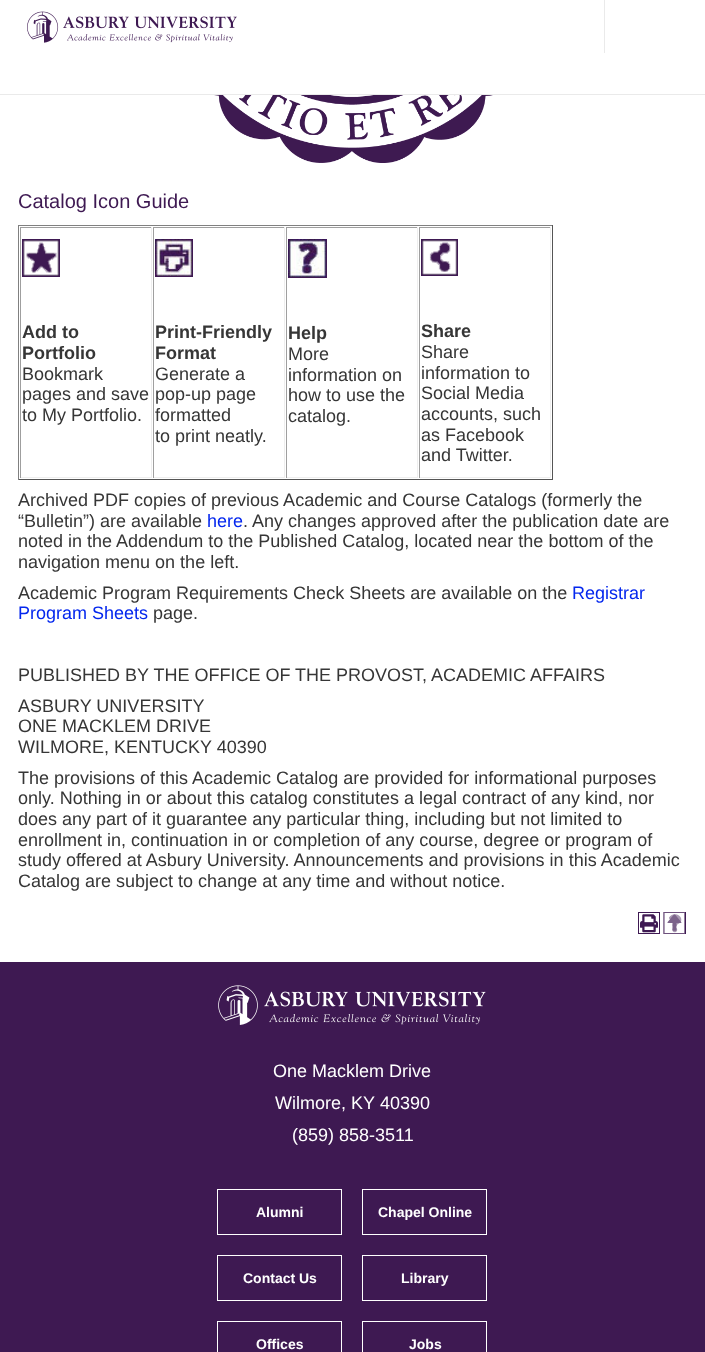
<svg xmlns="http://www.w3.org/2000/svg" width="705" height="1352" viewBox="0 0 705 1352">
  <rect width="100%" height="100%" fill="#ffffff"/>
  <rect x="0" y="94" width="705" height="1" fill="#eaeaea"/>
  <image x="27" y="11" width="210" height="32" href="img1.png"/>
  <rect x="604" y="0" width="1" height="53" fill="#eaeaea"/>
  <image x="214" y="95" width="279" height="68" href="img2.png"/>
  <text x="18" y="208" font-family="Liberation Sans" font-size="20" fill="#3e1952">Catalog Icon Guide</text>
  <rect x="18" y="225" width="535" height="1" fill="#808080"/>
  <rect x="552" y="225" width="1" height="255" fill="#555555"/>
  <rect x="18" y="479" width="535" height="1" fill="#555555"/>
  <rect x="18" y="225" width="1" height="255" fill="#808080"/>
  <rect x="20" y="227" width="132" height="1" fill="#9f9f9f"/>
  <rect x="151" y="227" width="1" height="251" fill="#eeeeee"/>
  <rect x="20" y="477" width="132" height="1" fill="#eeeeee"/>
  <rect x="20" y="227" width="1" height="251" fill="#9f9f9f"/>
  <image x="22" y="239" width="38" height="38" href="img3.png"/>
  <text x="22" y="338" font-family="Liberation Sans" font-size="18" font-weight="bold" fill="#363636">Add to</text>
  <text x="22" y="359" font-family="Liberation Sans" font-size="18" font-weight="bold" fill="#363636">Portfolio</text>
  <text x="22" y="380" font-family="Liberation Sans" font-size="18" fill="#363636">Bookmark</text>
  <text x="22" y="400" font-family="Liberation Sans" font-size="18" fill="#363636">pages and save</text>
  <text x="22" y="421" font-family="Liberation Sans" font-size="18" fill="#363636">to My Portfolio.</text>
  <rect x="153" y="227" width="132" height="1" fill="#9f9f9f"/>
  <rect x="284" y="227" width="1" height="251" fill="#eeeeee"/>
  <rect x="153" y="477" width="132" height="1" fill="#eeeeee"/>
  <rect x="153" y="227" width="1" height="251" fill="#9f9f9f"/>
  <image x="155" y="239" width="38" height="38" href="img4.png"/>
  <text x="155" y="338" font-family="Liberation Sans" font-size="18" font-weight="bold" fill="#363636">Print-Friendly</text>
  <text x="155" y="359" font-family="Liberation Sans" font-size="18" font-weight="bold" fill="#363636">Format</text>
  <text x="155" y="380" font-family="Liberation Sans" font-size="18" fill="#363636">Generate a</text>
  <text x="155" y="400" font-family="Liberation Sans" font-size="18" fill="#363636">pop-up page</text>
  <text x="155" y="421" font-family="Liberation Sans" font-size="18" fill="#363636">formatted</text>
  <text x="155" y="442" font-family="Liberation Sans" font-size="18" fill="#363636">to print neatly.</text>
  <rect x="286" y="227" width="132" height="1" fill="#9f9f9f"/>
  <rect x="417" y="227" width="1" height="251" fill="#eeeeee"/>
  <rect x="286" y="477" width="132" height="1" fill="#eeeeee"/>
  <rect x="286" y="227" width="1" height="251" fill="#9f9f9f"/>
  <image x="288" y="239" width="39" height="39" href="img5.png"/>
  <text x="288" y="339" font-family="Liberation Sans" font-size="18" font-weight="bold" fill="#363636">Help</text>
  <text x="288" y="360" font-family="Liberation Sans" font-size="18" fill="#363636">More</text>
  <text x="288" y="381" font-family="Liberation Sans" font-size="18" fill="#363636">information on</text>
  <text x="288" y="401" font-family="Liberation Sans" font-size="18" fill="#363636">how to use the</text>
  <text x="288" y="422" font-family="Liberation Sans" font-size="18" fill="#363636">catalog.</text>
  <rect x="419" y="227" width="132" height="1" fill="#9f9f9f"/>
  <rect x="550" y="227" width="1" height="251" fill="#eeeeee"/>
  <rect x="419" y="477" width="132" height="1" fill="#eeeeee"/>
  <rect x="419" y="227" width="1" height="251" fill="#9f9f9f"/>
  <image x="421" y="239" width="37" height="37" href="img6.png"/>
  <text x="421" y="337" font-family="Liberation Sans" font-size="18" font-weight="bold" fill="#363636">Share</text>
  <text x="421" y="358" font-family="Liberation Sans" font-size="18" fill="#363636">Share</text>
  <text x="421" y="379" font-family="Liberation Sans" font-size="18" fill="#363636">information to</text>
  <text x="421" y="399" font-family="Liberation Sans" font-size="18" fill="#363636">Social Media</text>
  <text x="421" y="420" font-family="Liberation Sans" font-size="18" fill="#363636">accounts, such</text>
  <text x="421" y="441" font-family="Liberation Sans" font-size="18" fill="#363636">as Facebook</text>
  <text x="421" y="461" font-family="Liberation Sans" font-size="18" fill="#363636">and Twitter.</text>
  <text x="18" y="506" font-family="Liberation Sans" font-size="18" fill="#363636">Archived PDF copies of previous Academic and Course Catalogs (formerly the</text>
  <text x="18" y="527" font-family="Liberation Sans" font-size="18" fill="#363636">“Bulletin”) are available</text>
  <text x="207" y="527" font-family="Liberation Sans" font-size="18" fill="#0427ee">here</text>
  <text x="243" y="527" font-family="Liberation Sans" font-size="18" fill="#363636">. Any changes approved after the publication date are</text>
  <text x="18" y="547" font-family="Liberation Sans" font-size="18" fill="#363636">noted in the Addendum to the Published Catalog, located near the bottom of the</text>
  <text x="18" y="568" font-family="Liberation Sans" font-size="18" fill="#363636">navigation menu on the left.</text>
  <text x="18" y="599" font-family="Liberation Sans" font-size="18" fill="#363636">Academic Program Requirements Check Sheets are available on the</text>
  <text x="572" y="599" font-family="Liberation Sans" font-size="18" fill="#0427ee">Registrar</text>
  <text x="18" y="619" font-family="Liberation Sans" font-size="18" fill="#0427ee">Program Sheets</text>
  <text x="153" y="619" font-family="Liberation Sans" font-size="18" fill="#363636">page.</text>
  <text x="18" y="681" font-family="Liberation Sans" font-size="18" fill="#363636">PUBLISHED BY THE OFFICE OF THE PROVOST, ACADEMIC AFFAIRS</text>
  <text x="18" y="712" font-family="Liberation Sans" font-size="18" fill="#363636">ASBURY UNIVERSITY</text>
  <text x="18" y="732" font-family="Liberation Sans" font-size="18" fill="#363636">ONE MACKLEM DRIVE</text>
  <text x="18" y="753" font-family="Liberation Sans" font-size="18" fill="#363636">WILMORE, KENTUCKY 40390</text>
  <text x="18" y="784" font-family="Liberation Sans" font-size="18" fill="#363636">The provisions of this Academic Catalog are provided for informational purposes</text>
  <text x="18" y="804" font-family="Liberation Sans" font-size="18" fill="#363636">only. Nothing in or about this catalog constitutes a legal contract of any kind, nor</text>
  <text x="18" y="825" font-family="Liberation Sans" font-size="18" fill="#363636">does any part of it guarantee any particular thing, including but not limited to</text>
  <text x="18" y="846" font-family="Liberation Sans" font-size="18" fill="#363636">enrollment in, continuation in or completion of any course, degree or program of</text>
  <text x="18" y="866" font-family="Liberation Sans" font-size="18" fill="#363636">study offered at Asbury University. Announcements and provisions in this Academic</text>
  <text x="18" y="887" font-family="Liberation Sans" font-size="18" fill="#363636">Catalog are subject to change at any time and without notice.</text>
  <rect x="638.5" y="912.5" width="21" height="21" fill="none" stroke="#3e1952"/>
  <image x="640" y="914" width="18" height="19" href="img7.png"/>
  <rect x="664.5" y="912.5" width="21" height="21" fill="none" stroke="#3e1952"/>
  <image x="669" y="914" width="13" height="19" href="img8.png"/>
  <rect x="664" y="912" width="21" height="22" fill="#ffffff" fill-opacity="0.56"/>
  <rect x="663.5" y="912.5" width="21" height="21" fill="none" stroke="#3e1952" stroke-opacity="0.56"/>
  <text x="665" y="928" font-family="'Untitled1'" font-size="18" font-weight="500" fill="#7c638a">T</text>
  <rect x="0" y="962" width="705" height="390" fill="#3e1952"/>
  <image x="218" y="985" width="268" height="40" href="img9.png"/>
  <text x="273" y="1077" font-family="Liberation Sans" font-size="18" fill="#ffffff">One Macklem Drive</text>
  <text x="275" y="1109" font-family="Liberation Sans" font-size="18" fill="#ffffff">Wilmore, KY</text>
  <text x="380" y="1109" font-family="Liberation Sans" font-size="18" fill="#ffffff">40390</text>
  <text x="292" y="1141" font-family="Liberation Sans" font-size="18" fill="#ffffff">(859) 858-3511</text>
  <rect x="217.5" y="1189.5" width="124" height="45" fill="none" stroke="#ffffff"/>
  <text x="256" y="1217" font-family="Liberation Sans" font-size="14" font-weight="bold" fill="#ffffff">Alumni</text>
  <rect x="362.5" y="1189.5" width="124" height="45" fill="none" stroke="#ffffff"/>
  <text x="378" y="1217" font-family="Liberation Sans" font-size="14" font-weight="bold" fill="#ffffff">Chapel Online</text>
  <rect x="217.5" y="1255.5" width="124" height="45" fill="none" stroke="#ffffff"/>
  <text x="243" y="1283" font-family="Liberation Sans" font-size="14" font-weight="bold" fill="#ffffff">Contact Us</text>
  <rect x="362.5" y="1255.5" width="124" height="45" fill="none" stroke="#ffffff"/>
  <text x="401" y="1283" font-family="Liberation Sans" font-size="14" font-weight="bold" fill="#ffffff">Library</text>
  <rect x="217.5" y="1321.5" width="124" height="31" fill="none" stroke="#ffffff"/>
  <text x="256" y="1349" font-family="Liberation Sans" font-size="14" font-weight="bold" fill="#ffffff">Offices</text>
  <rect x="362.5" y="1321.5" width="124" height="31" fill="none" stroke="#ffffff"/>
  <text x="409" y="1349" font-family="Liberation Sans" font-size="14" font-weight="bold" fill="#ffffff">Jobs</text>
</svg>
